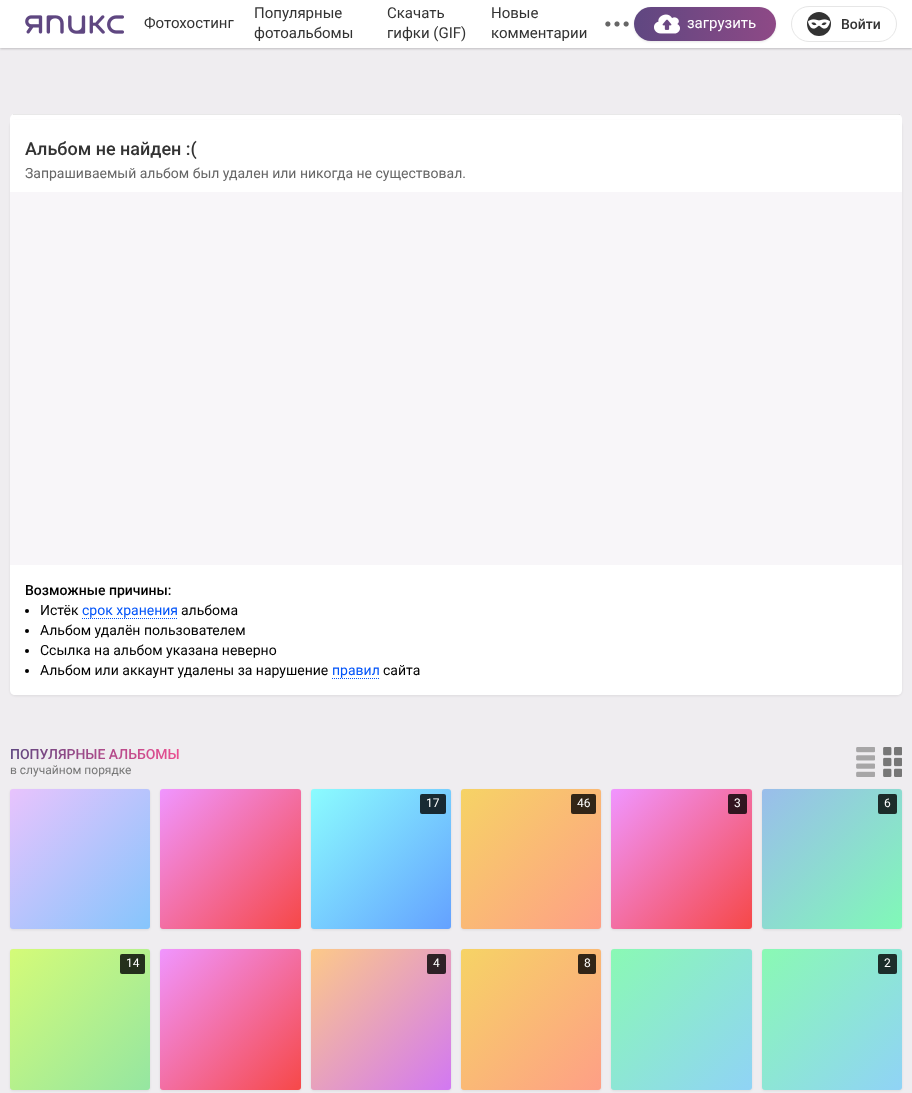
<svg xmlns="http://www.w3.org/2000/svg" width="912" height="1093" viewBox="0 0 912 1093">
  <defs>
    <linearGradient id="g1" gradientUnits="userSpaceOnUse" x1="10" y1="754" x2="180" y2="754"><stop offset="0" stop-color="#5f4781"/><stop offset="1" stop-color="#ec4e91"/></linearGradient>
    <filter id="blur1" x="-50%" y="-200%" width="200%" height="500%"><feGaussianBlur stdDeviation="1"/></filter>
    <linearGradient id="g2" gradientUnits="userSpaceOnUse" x1="634" y1="24" x2="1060" y2="24"><stop offset="0" stop-color="#5f4781"/><stop offset="1" stop-color="#ec4e91"/></linearGradient>
    <linearGradient id="g3" gradientUnits="userSpaceOnUse" x1="10" y1="789" x2="150" y2="929"><stop offset="0" stop-color="#e8c3fd"/><stop offset="1" stop-color="#86c5fc"/></linearGradient>
    <linearGradient id="g4" gradientUnits="userSpaceOnUse" x1="161" y1="789" x2="300" y2="929"><stop offset="0" stop-color="#f095ff"/><stop offset="1" stop-color="#f64848"/></linearGradient>
    <linearGradient id="g5" gradientUnits="userSpaceOnUse" x1="311" y1="789" x2="451" y2="929"><stop offset="0" stop-color="#8bfcfe"/><stop offset="1" stop-color="#64a1ff"/></linearGradient>
    <linearGradient id="g6" gradientUnits="userSpaceOnUse" x1="461" y1="789" x2="601" y2="929"><stop offset="0" stop-color="#f6d365"/><stop offset="1" stop-color="#fe9f86"/></linearGradient>
    <linearGradient id="g7" gradientUnits="userSpaceOnUse" x1="612" y1="789" x2="751" y2="929"><stop offset="0" stop-color="#f095ff"/><stop offset="1" stop-color="#f64848"/></linearGradient>
    <linearGradient id="g8" gradientUnits="userSpaceOnUse" x1="762" y1="789" x2="902" y2="929"><stop offset="0" stop-color="#9abdeb"/><stop offset="1" stop-color="#80f9b7"/></linearGradient>
    <linearGradient id="g9" gradientUnits="userSpaceOnUse" x1="10" y1="950" x2="150" y2="1089"><stop offset="0" stop-color="#d4fb78"/><stop offset="1" stop-color="#95e6a1"/></linearGradient>
    <linearGradient id="g10" gradientUnits="userSpaceOnUse" x1="160" y1="949" x2="301" y2="1090"><stop offset="0" stop-color="#f095ff"/><stop offset="1" stop-color="#f64848"/></linearGradient>
    <linearGradient id="g11" gradientUnits="userSpaceOnUse" x1="311" y1="950" x2="451" y2="1089"><stop offset="0" stop-color="#fcc989"/><stop offset="1" stop-color="#d278f2"/></linearGradient>
    <linearGradient id="g12" gradientUnits="userSpaceOnUse" x1="461" y1="950" x2="601" y2="1089"><stop offset="0" stop-color="#f6d365"/><stop offset="1" stop-color="#fe9f86"/></linearGradient>
    <linearGradient id="g13" gradientUnits="userSpaceOnUse" x1="611" y1="949" x2="752" y2="1090"><stop offset="0" stop-color="#8af9b4"/><stop offset="1" stop-color="#90d3f6"/></linearGradient>
    <linearGradient id="g14" gradientUnits="userSpaceOnUse" x1="762" y1="950" x2="902" y2="1089"><stop offset="0" stop-color="#8af9b4"/><stop offset="1" stop-color="#90d3f6"/></linearGradient>
  </defs>
  <rect width="100%" height="100%" fill="#efedf0"/>
  <rect x="0" y="1" width="912" height="48" fill="#000000" fill-opacity="0.2" filter="url(#blur1)"/>
  <rect x="0" y="0" width="912" height="48" fill="#ffffff"/>
  <image x="25" y="15" width="99" height="19" href="img1.png"/>
  <text x="144" y="28" font-family="Roboto" font-size="15" fill="#333333">Фотохостинг</text>
  <text x="254" y="18" font-family="Roboto" font-size="15" fill="#333333">Популярные</text>
  <text x="254" y="38" font-family="Roboto" font-size="15" fill="#333333">фотоальбомы</text>
  <text x="387" y="18" font-family="Roboto" font-size="15" fill="#333333">Скачать</text>
  <text x="387" y="38" font-family="Roboto" font-size="15" fill="#333333">гифки (GIF)</text>
  <text x="491" y="18" font-family="Roboto" font-size="15" fill="#333333">Новые</text>
  <text x="491" y="38" font-family="Roboto" font-size="15" fill="#333333">комментарии</text>
  <image x="605" y="21" width="24" height="6" href="img2.png"/>
  <rect x="634" y="8" width="142" height="34" rx="17" fill="#000000" fill-opacity="0.1" filter="url(#blur1)"/>
  <rect x="634" y="7" width="142" height="34" rx="17" fill="url(#g2)"/>
  <image x="654" y="14" width="26" height="20" href="img3.png"/>
  <text x="687" y="28" font-family="Roboto" font-size="15" fill="#ffffff">загрузить</text>
  <rect x="791.5" y="6.5" width="105" height="35" rx="17.5" fill="none" stroke="#e6e6e6"/>
  <circle cx="819" cy="24" r="12" fill="#333333"/>
  <image x="808" y="19" width="22" height="10" href="img4.png"/>
  <text x="841" y="29" font-family="Roboto" font-size="14" font-weight="500" fill="#333333">Войти</text>
  <path d="M15 114H897C900 114 902 116 902 119V120H10V119C10 116 12 114 15 114Z" fill="#ffffff"/>
  <rect x="13" y="114" width="887" height="1" fill="#000000" fill-opacity="0.09"/>
  <rect x="10" y="121" width="892" height="575" rx="5" fill="#000000" fill-opacity="0.08" filter="url(#blur1)"/>
  <path d="M10 120H902V690C902 693 900 695 897 695H15C12 695 10 693 10 690Z" fill="#ffffff"/>
  <text x="25" y="155" font-family="Roboto" font-size="18" font-weight="500" fill="#333333">Альбом не найден :(</text>
  <text x="25" y="178" font-family="Roboto" font-size="14" fill="#666666">Запрашиваемый альбом был удален или никогда не существовал.</text>
  <rect x="10" y="192" width="892" height="373" fill="#f8f6f9"/>
  <text x="25" y="595" font-family="Roboto" font-size="14" font-weight="500" fill="#000000">Возможные причины:</text>
  <circle cx="27" cy="611" r="2" fill="#000000"/>
  <text x="40" y="615" font-family="Roboto" font-size="14" fill="#000000">Истёк</text>
  <text x="82" y="615" font-family="Roboto" font-size="14" fill="#0053f9">срок хранения</text>
  <path d="M82 618.5H178" fill="none" stroke="#0053f9" stroke-dasharray="1 1"/>
  <text x="181" y="615" font-family="Roboto" font-size="14" fill="#000000">альбома</text>
  <circle cx="27" cy="631" r="2" fill="#000000"/>
  <text x="40" y="635" font-family="Roboto" font-size="14" fill="#000000">Альбом удалён пользователем</text>
  <circle cx="27" cy="651" r="2" fill="#000000"/>
  <text x="40" y="655" font-family="Roboto" font-size="14" fill="#000000">Ссылка на альбом указана неверно</text>
  <circle cx="27" cy="671" r="2" fill="#000000"/>
  <text x="40" y="675" font-family="Roboto" font-size="14" fill="#000000">Альбом или аккаунт удалены за нарушение</text>
  <text x="332" y="675" font-family="Roboto" font-size="14" fill="#0053f9">правил</text>
  <path d="M332 678.5H380" fill="none" stroke="#0053f9" stroke-dasharray="1 1"/>
  <text x="383" y="675" font-family="Roboto" font-size="14" fill="#000000">сайта</text>
  <text x="10" y="759" font-family="Roboto" font-size="14" font-weight="500" fill="url(#g1)">ПОПУЛЯРНЫЕ АЛЬБОМЫ</text>
  <text x="10" y="774" font-family="Roboto" font-size="12" fill="#777777">в случайном порядке</text>
  <image x="856" y="747" width="19" height="30" href="img5.png"/>
  <image x="883" y="747" width="19" height="30" href="img6.png"/>
  <rect x="10" y="790" width="140" height="140" rx="3" fill="#000000" fill-opacity="0.08" filter="url(#blur1)"/>
  <rect x="10" y="789" width="140" height="140" rx="3" fill="url(#g3)"/>
  <rect x="160" y="790" width="141" height="140" rx="3" fill="#000000" fill-opacity="0.08" filter="url(#blur1)"/>
  <rect x="160" y="789" width="141" height="140" rx="3" fill="url(#g4)"/>
  <rect x="311" y="790" width="140" height="140" rx="3" fill="#000000" fill-opacity="0.08" filter="url(#blur1)"/>
  <rect x="311" y="789" width="140" height="140" rx="3" fill="url(#g5)"/>
  <rect x="420" y="794" width="26" height="20" rx="2" fill="#000000" fill-opacity="0.8"/>
  <text x="426" y="807" font-family="Roboto" font-size="12" fill="#ffffff">17</text>
  <rect x="461" y="790" width="140" height="140" rx="3" fill="#000000" fill-opacity="0.08" filter="url(#blur1)"/>
  <rect x="461" y="789" width="140" height="140" rx="3" fill="url(#g6)"/>
  <rect x="571" y="794" width="25" height="20" rx="2" fill="#000000" fill-opacity="0.8"/>
  <text x="577" y="807" font-family="Roboto" font-size="12" fill="#ffffff">46</text>
  <rect x="611" y="790" width="141" height="140" rx="3" fill="#000000" fill-opacity="0.08" filter="url(#blur1)"/>
  <rect x="611" y="789" width="141" height="140" rx="3" fill="url(#g7)"/>
  <rect x="728" y="794" width="19" height="20" rx="2" fill="#000000" fill-opacity="0.8"/>
  <text x="734" y="807" font-family="Roboto" font-size="12" fill="#ffffff">3</text>
  <rect x="762" y="790" width="140" height="140" rx="3" fill="#000000" fill-opacity="0.08" filter="url(#blur1)"/>
  <rect x="762" y="789" width="140" height="140" rx="3" fill="url(#g8)"/>
  <rect x="878" y="794" width="19" height="20" rx="2" fill="#000000" fill-opacity="0.8"/>
  <text x="884" y="807" font-family="Roboto" font-size="12" fill="#ffffff">6</text>
  <rect x="10" y="950" width="140" height="141" rx="3" fill="#000000" fill-opacity="0.08" filter="url(#blur1)"/>
  <rect x="10" y="949" width="140" height="141" rx="3" fill="url(#g9)"/>
  <rect x="120" y="954" width="25" height="20" rx="2" fill="#000000" fill-opacity="0.8"/>
  <text x="126" y="967" font-family="Roboto" font-size="12" fill="#ffffff">14</text>
  <rect x="160" y="950" width="141" height="141" rx="3" fill="#000000" fill-opacity="0.08" filter="url(#blur1)"/>
  <rect x="160" y="949" width="141" height="141" rx="3" fill="url(#g10)"/>
  <rect x="311" y="950" width="140" height="141" rx="3" fill="#000000" fill-opacity="0.08" filter="url(#blur1)"/>
  <rect x="311" y="949" width="140" height="141" rx="3" fill="url(#g11)"/>
  <rect x="427" y="954" width="19" height="20" rx="2" fill="#000000" fill-opacity="0.8"/>
  <text x="433" y="967" font-family="Roboto" font-size="12" fill="#ffffff">4</text>
  <rect x="461" y="950" width="140" height="141" rx="3" fill="#000000" fill-opacity="0.08" filter="url(#blur1)"/>
  <rect x="461" y="949" width="140" height="141" rx="3" fill="url(#g12)"/>
  <rect x="578" y="954" width="18" height="20" rx="2" fill="#000000" fill-opacity="0.8"/>
  <text x="584" y="967" font-family="Roboto" font-size="12" fill="#ffffff">8</text>
  <rect x="611" y="950" width="141" height="141" rx="3" fill="#000000" fill-opacity="0.08" filter="url(#blur1)"/>
  <rect x="611" y="949" width="141" height="141" rx="3" fill="url(#g13)"/>
  <rect x="762" y="950" width="140" height="141" rx="3" fill="#000000" fill-opacity="0.08" filter="url(#blur1)"/>
  <rect x="762" y="949" width="140" height="141" rx="3" fill="url(#g14)"/>
  <rect x="878" y="954" width="19" height="20" rx="2" fill="#000000" fill-opacity="0.8"/>
  <text x="884" y="967" font-family="Roboto" font-size="12" fill="#ffffff">2</text>
</svg>
